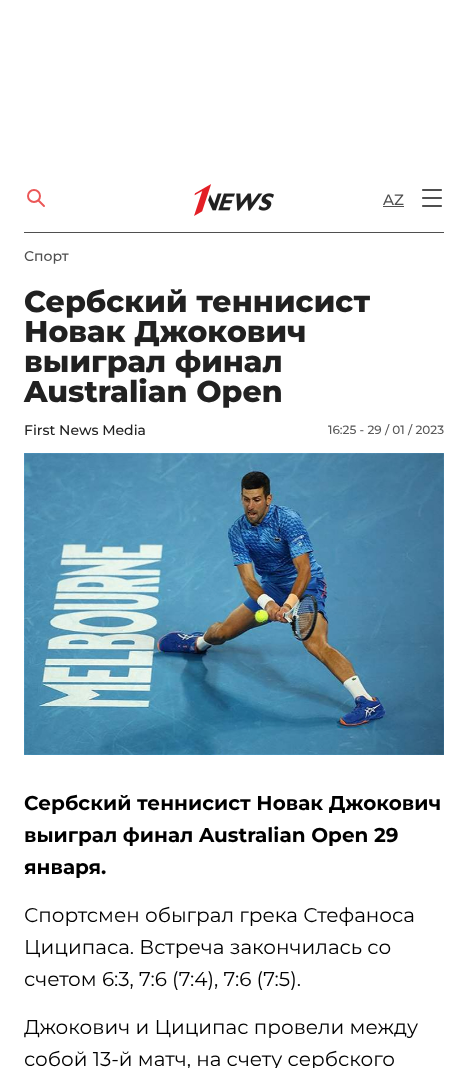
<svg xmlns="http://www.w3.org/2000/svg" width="468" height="1068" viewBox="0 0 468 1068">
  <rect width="100%" height="100%" fill="#ffffff"/>
  <rect x="24" y="232" width="420" height="1" fill="#4f4f4f"/>
  <image x="27" y="189" width="18" height="18" href="img1.png"/>
  <image x="194" y="184" width="80" height="32" href="img2.png"/>
  <text x="383" y="205" font-family="Montserrat" font-size="15" font-weight="500" fill="#4f4f4f">AZ</text>
  <rect x="383" y="206" width="21" height="1" fill="#4f4f4f"/>
  <image x="422" y="189" width="20" height="18" href="img3.png"/>
  <text x="24" y="261" font-family="Montserrat" font-size="14" font-weight="500" fill="#4f4f4f">Спорт</text>
  <text x="24" y="312" font-family="Montserrat" font-size="30" font-weight="800" fill="#212121">Сербский теннисист</text>
  <text x="24" y="342" font-family="Montserrat" font-size="30" font-weight="800" fill="#212121">Новак Джокович</text>
  <text x="24" y="372" font-family="Montserrat" font-size="30" font-weight="800" fill="#212121">выиграл финал</text>
  <text x="24" y="402" font-family="Montserrat" font-size="30" font-weight="800" fill="#212121">Australian Open</text>
  <text x="24" y="435" font-family="Montserrat" font-size="14" font-weight="500" fill="#212121">First News Media</text>
  <text x="328" y="434" font-family="Montserrat" font-size="12" font-weight="500" fill="#595959">16:25 - 29 / 01 / 2023</text>
  <image x="24" y="453" width="420" height="302" href="img4.png"/>
  <text x="24" y="810" font-family="Montserrat" font-size="20" font-weight="bold" fill="#000000">Сербский теннисист Новак Джокович</text>
  <text x="24" y="842" font-family="Montserrat" font-size="20" font-weight="bold" fill="#000000">выиграл финал Australian Open 29</text>
  <text x="24" y="874" font-family="Montserrat" font-size="20" font-weight="bold" fill="#000000">января.</text>
  <text x="24" y="922" font-family="Montserrat" font-size="20" fill="#000000">Спортсмен обыграл грека Стефаноса</text>
  <text x="24" y="954" font-family="Montserrat" font-size="20" fill="#000000">Циципаса. Встреча закончилась со</text>
  <text x="24" y="986" font-family="Montserrat" font-size="20" fill="#000000">счетом 6:3, 7:6 (7:4), 7:6 (7:5).</text>
  <text x="24" y="1034" font-family="Montserrat" font-size="20" fill="#000000">Джокович и Циципас провели между</text>
  <text x="24" y="1066" font-family="Montserrat" font-size="20" fill="#000000">собой 13-й матч, на счету сербского</text>
</svg>
